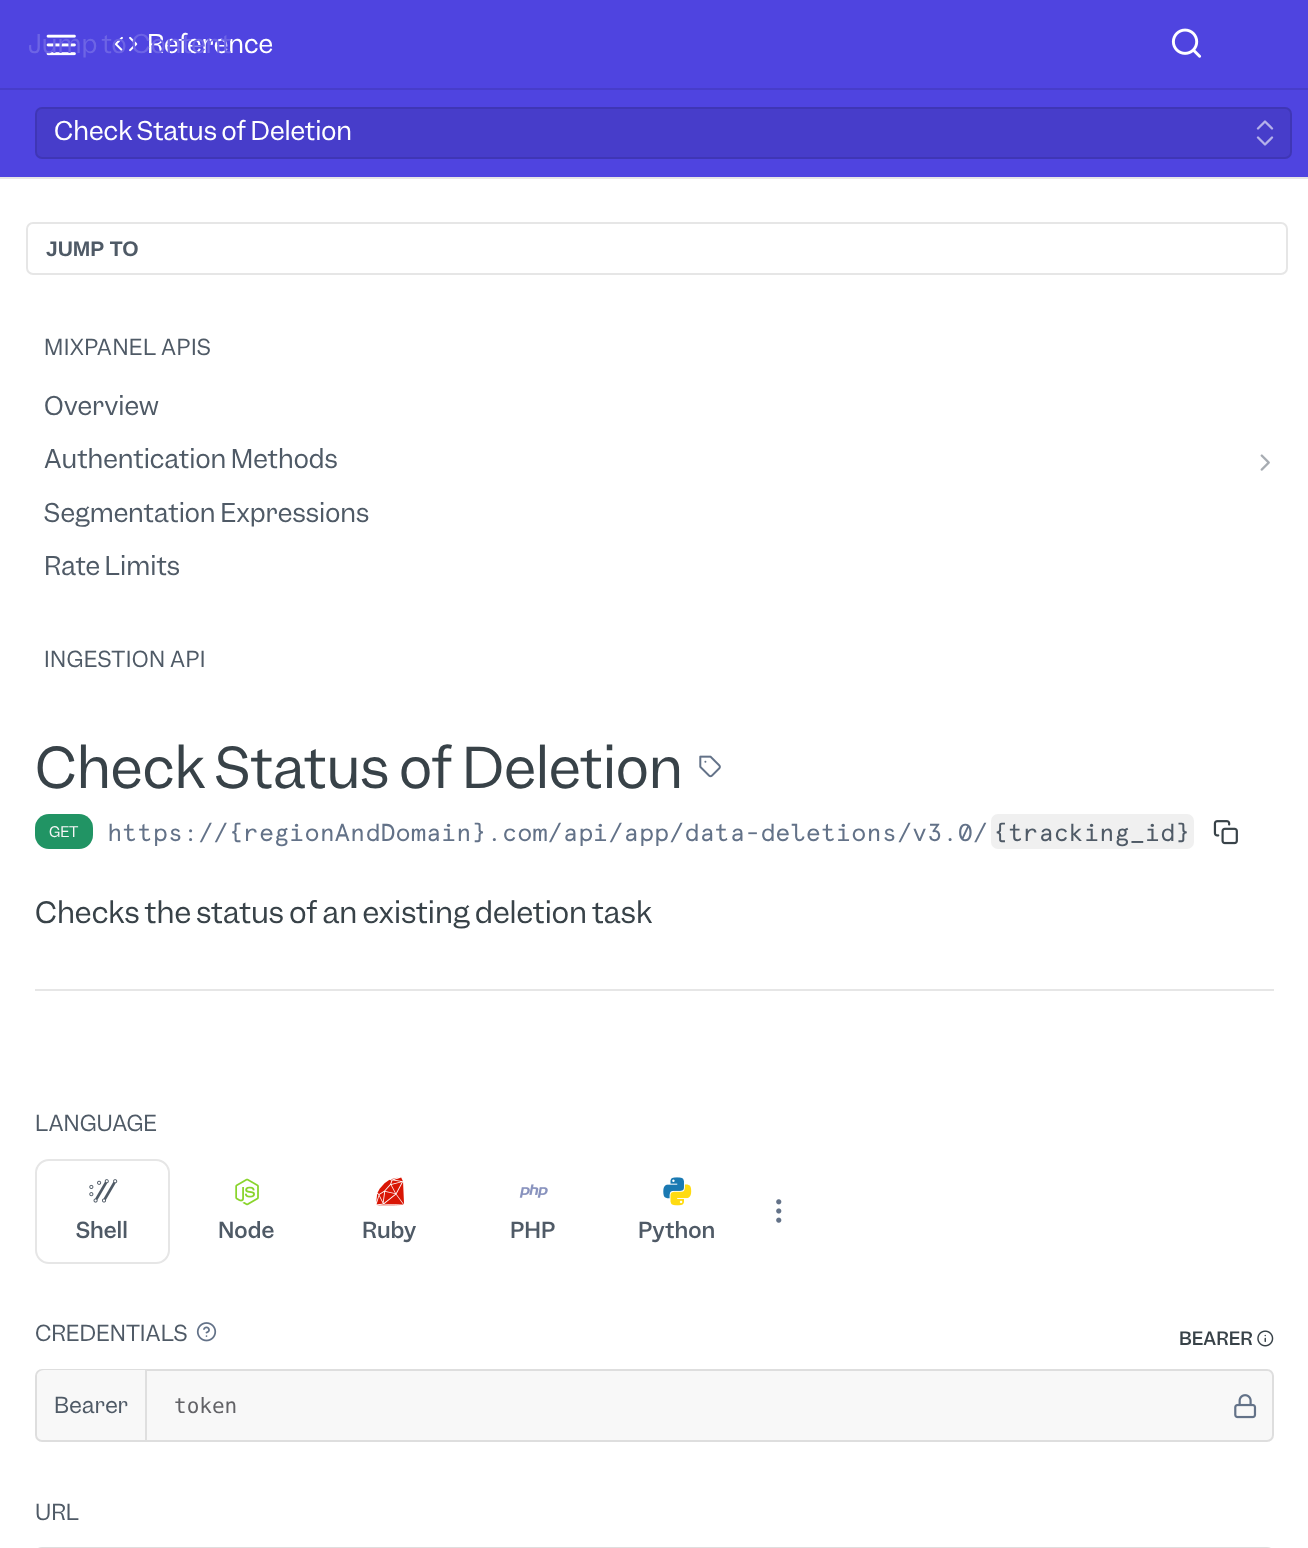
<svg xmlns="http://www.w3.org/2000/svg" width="1308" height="1548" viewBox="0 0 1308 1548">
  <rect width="100%" height="100%" fill="#ffffff"/>
  <rect x="0" y="177" width="1308" height="2" fill="#e6e6e6"/>
  <rect x="0" y="0" width="1308" height="177" fill="#4f44e0"/>
  <rect x="0" y="88" width="1308" height="2" fill="#473dca"/>
  <image x="46" y="34" width="30" height="22" href="img1.png"/>
  <image x="114" y="36" width="24" height="16" href="img2.png"/>
  <text x="147" y="53" font-family="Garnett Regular" font-size="24.5" fill="#ffffff">Reference</text>
  <image x="1171" y="28" width="31" height="30" href="img3.png"/>
  <text x="28" y="53" font-family="Garnett Regular" font-size="24.5" fill="#6d64e5">Jump to Content</text>
  <rect x="35" y="107" width="1257" height="52" rx="7" fill="#473dca"/>
  <rect x="36" y="108" width="1255" height="50" rx="6" fill="none" stroke="#000000" stroke-opacity="0.1" stroke-width="2"/>
  <text x="54" y="140" font-family="Garnett Regular" font-size="24.5" fill="#ffffff">Check Status of Deletion</text>
  <path d="M1258 137.5L1265 144.5L1272 137.5M1272 128.5L1265 121.5L1258 128.5" fill="none" stroke="#b5b1ea" stroke-width="2.3" stroke-linecap="round" stroke-linejoin="round"/>
  <rect x="27" y="223" width="1260" height="51" rx="6" fill="none" stroke="#e6e6e6" stroke-width="2"/>
  <text x="46" y="256" font-family="Liberation Sans" font-size="21" font-weight="bold" fill="#4f5a66">JUMP TO</text>
  <text x="44" y="355" font-family="Garnett Regular" font-size="21" letter-spacing="0.4" fill="#4f5a66">MIXPANEL APIS</text>
  <text x="44" y="415" font-family="Garnett Regular" font-size="24.5" fill="#4f5a66">Overview</text>
  <text x="44" y="468" font-family="Garnett Regular" font-size="24.5" fill="#4f5a66">Authentication Methods</text>
  <image x="1260" y="454" width="10" height="17" href="img4.png"/>
  <text x="44" y="522" font-family="Garnett Regular" font-size="24.5" fill="#4f5a66">Segmentation Expressions</text>
  <text x="44" y="575" font-family="Garnett Regular" font-size="24.5" fill="#4f5a66">Rate Limits</text>
  <text x="44" y="667" font-family="Garnett Regular" font-size="21" letter-spacing="0.4" fill="#4f5a66">INGESTION API</text>
  <rect x="35" y="989" width="1239" height="2" fill="#e6e6e6"/>
  <text x="35" y="788" font-family="Garnett Regular" font-size="53.25" fill="#384248">Check Status of Deletion</text>
  <image x="699" y="755" width="22" height="23" href="img5.png"/>
  <rect x="35" y="814" width="58" height="35" rx="14" fill="#219464"/>
  <text x="49" y="837" font-family="Garnett Regular" font-size="14" fill="#f6f6f6">GET</text>
  <text x="107" y="841" font-family="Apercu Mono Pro" font-size="24.5" fill="#637288">https://{regionAndDomain}.com/api/app/data-deletions/v3.0/</text>
  <rect x="991" y="814" width="203" height="35" rx="7" fill="#f0f0f0"/>
  <text x="993" y="841" font-family="Apercu Mono Pro" font-size="24.5" fill="#4f5a66">{tracking_id}</text>
  <image x="1213" y="820" width="25" height="25" href="img6.png"/>
  <text x="35" y="923" font-family="Garnett Regular" font-size="28" fill="#384248">Checks the status of an existing deletion task</text>
  <text x="35" y="1131" font-family="Garnett Regular" font-size="21" fill="#4f5a66">LANGUAGE</text>
  <image x="776" y="1199" width="6" height="24" href="img7.png"/>
  <rect x="36" y="1160" width="133" height="103" rx="13" fill="none" stroke="#e6e6e6" stroke-width="2"/>
  <image x="89" y="1179" width="29" height="24" href="img8.png"/>
  <text x="76" y="1238" font-family="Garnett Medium" font-size="21" font-weight="500" fill="#4f5a66">Shell</text>
  <image x="235" y="1178" width="24" height="28" href="img9.png"/>
  <text x="218" y="1238" font-family="Garnett Medium" font-size="21" font-weight="500" fill="#4f5a66">Node</text>
  <image x="376" y="1177" width="28" height="29" href="img10.png"/>
  <text x="362" y="1238" font-family="Garnett Medium" font-size="21" font-weight="500" fill="#4f5a66">Ruby</text>
  <image x="519" y="1184" width="29" height="14" href="img11.png"/>
  <text x="510" y="1238" font-family="Garnett Medium" font-size="21" font-weight="500" fill="#4f5a66">PHP</text>
  <image x="663" y="1177" width="21" height="22" href="img12.png"/>
  <image x="670" y="1184" width="22" height="22" href="img13.png"/>
  <text x="638" y="1238" font-family="Garnett Medium" font-size="21" font-weight="500" fill="#4f5a66">Python</text>
  <text x="35" y="1341" font-family="Garnett Regular" font-size="21" fill="#4f5a66">CREDENTIALS</text>
  <image x="196" y="1322" width="21" height="20" href="img14.png"/>
  <text x="1179" y="1345" font-family="Garnett Medium" font-size="17.5" font-weight="500" fill="#384248">BEARER</text>
  <image x="1257" y="1330" width="17" height="17" href="img15.png"/>
  <rect x="35" y="1369" width="1239" height="73" rx="7" fill="#f8f8f8"/>
  <rect x="36" y="1370" width="1237" height="71" rx="6" fill="none" stroke="#000000" stroke-opacity="0.1" stroke-width="2"/>
  <path d="M44 1370H147V1440H44C40 1440 37 1437 37 1433V1377C37 1373 40 1370 44 1370Z" fill="#f8f8f8"/>
  <rect x="145" y="1370" width="2" height="70" fill="#dfdfdf"/>
  <text x="54" y="1413" font-family="Garnett Regular" font-size="21" fill="#4f5a66">Bearer</text>
  <text x="174" y="1413" font-family="DejaVu Sans Mono" font-size="21" fill="#626266">token</text>
  <image x="1234" y="1394" width="23" height="25" href="img16.png"/>
  <text x="35" y="1520" font-family="Garnett Regular" font-size="21" fill="#4f5a66">URL</text>
  <path d="M42 1547H1267C1271 1547 1274 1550 1274 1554V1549H35V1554C35 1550 38 1547 42 1547Z" fill="#f8f8f8"/>
  <rect x="36" y="1548" width="1237" height="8" rx="6" fill="none" stroke="#000000" stroke-opacity="0.1" stroke-width="2"/>
</svg>
